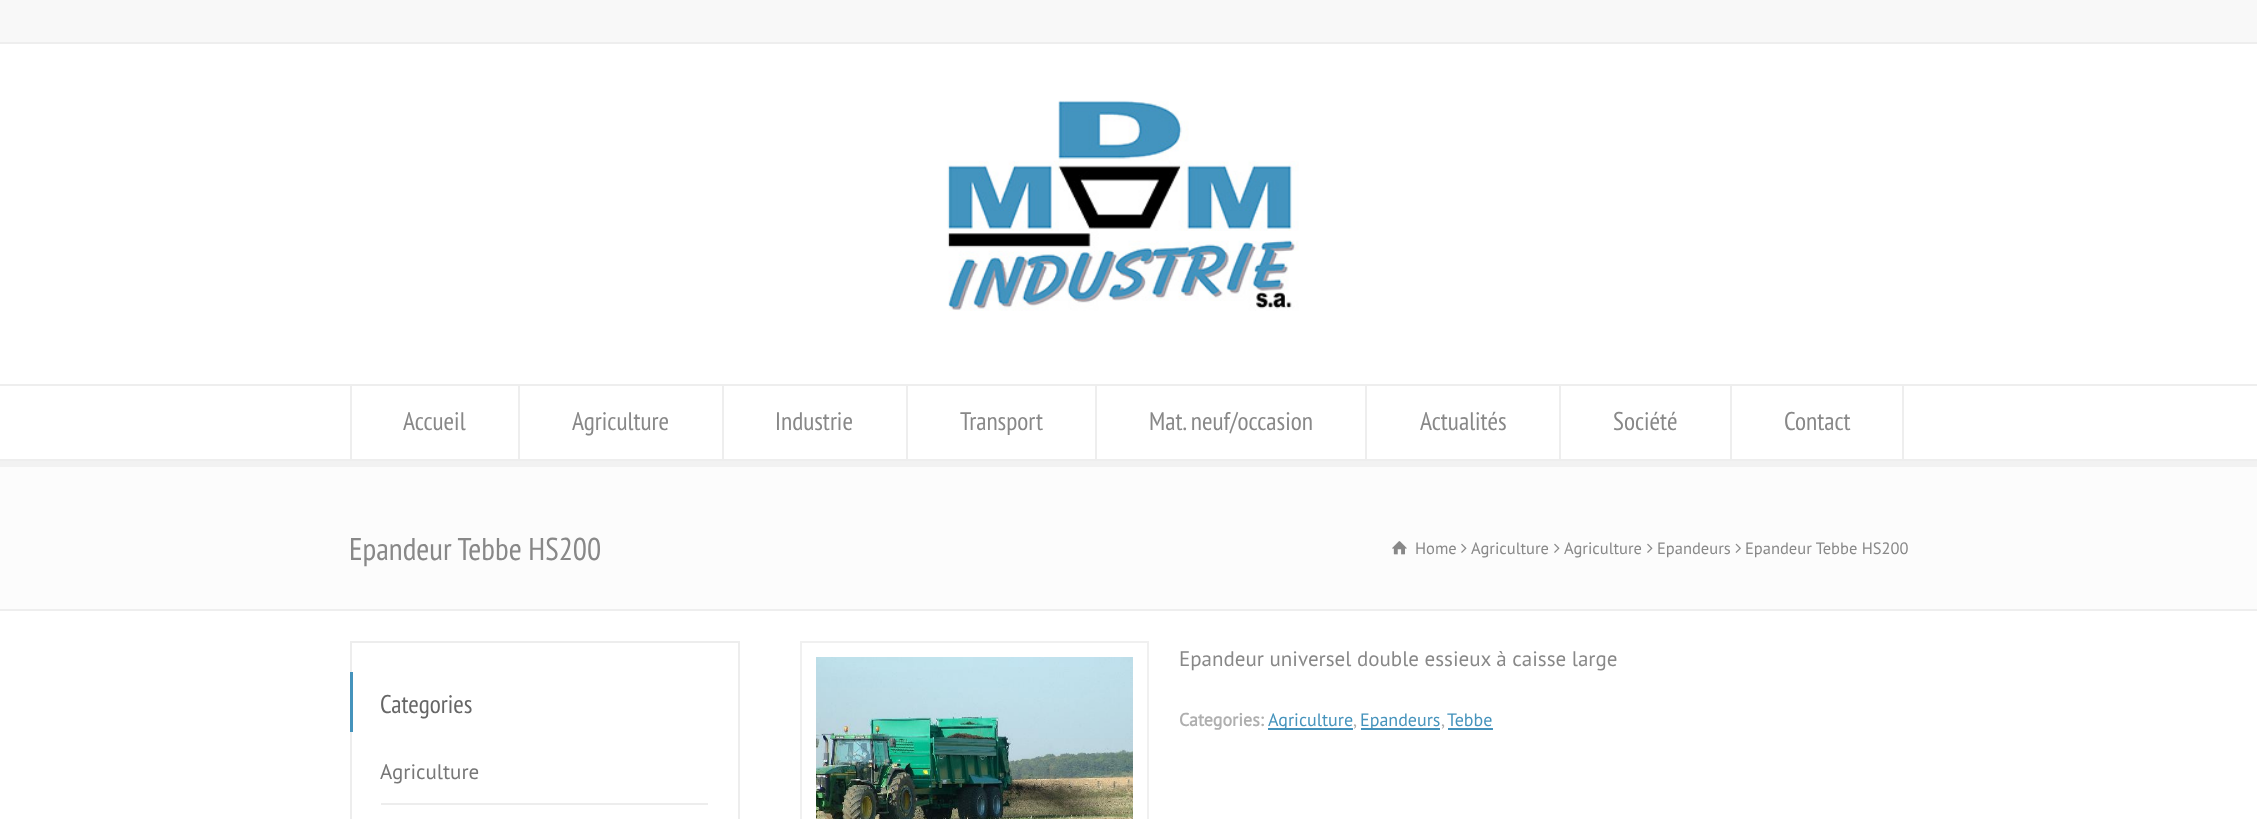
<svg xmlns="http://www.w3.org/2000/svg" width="2257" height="819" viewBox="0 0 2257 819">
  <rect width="100%" height="100%" fill="#ffffff"/>
  <rect x="0" y="0" width="2257" height="42" fill="#f8f8f8"/>
  <rect x="0" y="42" width="2257" height="2" fill="#eeeeee"/>
  <image x="947" y="100" width="352" height="211" href="img1.png"/>
  <path d="M0 460V467H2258V390V460Z" fill="#f2f2f2"/>
  <rect x="0" y="384" width="2257" height="2" fill="#eeeeee"/>
  <rect x="0" y="459" width="2257" height="2" fill="#eeeeee"/>
  <rect x="518" y="386" width="2" height="73" fill="#eeeeee"/>
  <rect x="350" y="386" width="2" height="73" fill="#eeeeee"/>
  <text x="403" y="430" font-family="PT Sans Narrow" font-size="25.5" fill="#888888">Accueil</text>
  <rect x="722" y="386" width="2" height="73" fill="#eeeeee"/>
  <text x="572" y="430" font-family="PT Sans Narrow" font-size="25.5" fill="#888888">Agriculture</text>
  <rect x="906" y="386" width="2" height="73" fill="#eeeeee"/>
  <text x="775" y="430" font-family="PT Sans Narrow" font-size="25.5" fill="#888888">Industrie</text>
  <rect x="1095" y="386" width="2" height="73" fill="#eeeeee"/>
  <text x="960" y="430" font-family="PT Sans Narrow" font-size="25.5" fill="#888888">Transport</text>
  <rect x="1365" y="386" width="2" height="73" fill="#eeeeee"/>
  <text x="1149" y="430" font-family="PT Sans Narrow" font-size="25.5" fill="#888888">Mat. neuf/occasion</text>
  <rect x="1559" y="386" width="2" height="73" fill="#eeeeee"/>
  <text x="1420" y="430" font-family="PT Sans Narrow" font-size="25.5" fill="#888888">Actualités</text>
  <rect x="1730" y="386" width="2" height="73" fill="#eeeeee"/>
  <text x="1613" y="430" font-family="PT Sans Narrow" font-size="25.5" fill="#888888">Société</text>
  <rect x="1902" y="386" width="2" height="73" fill="#eeeeee"/>
  <text x="1784" y="430" font-family="PT Sans Narrow" font-size="25.5" fill="#888888">Contact</text>
  <rect x="0" y="467" width="2257" height="142" fill="#fcfcfc"/>
  <rect x="0" y="609" width="2257" height="2" fill="#eeeeee"/>
  <text x="349" y="560" font-family="PT Sans Narrow" font-size="31.5" fill="#888888">Epandeur Tebbe HS200</text>
  <image x="1392" y="541" width="15" height="14" href="img2.png"/>
  <text x="1415" y="554" font-family="PT Sans" font-size="16.5" fill="#888888">Home</text>
  <image x="1461" y="543" width="6" height="10" href="img3.png"/>
  <text x="1471" y="554" font-family="PT Sans" font-size="16.5" fill="#888888">Agriculture</text>
  <image x="1554" y="543" width="6" height="10" href="img3.png"/>
  <text x="1564" y="554" font-family="PT Sans" font-size="16.5" fill="#888888">Agriculture</text>
  <image x="1647" y="543" width="6" height="10" href="img3.png"/>
  <text x="1657" y="554" font-family="PT Sans" font-size="16.5" fill="#888888">Epandeurs</text>
  <image x="1735" y="543" width="6" height="10" href="img4.png"/>
  <text x="1745" y="554" font-family="PT Sans" font-size="16.5" fill="#888888">Epandeur Tebbe HS200</text>
  <rect x="351" y="642" width="388" height="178" fill="none" stroke="#ededed" stroke-width="2"/>
  <rect x="350" y="672" width="3" height="60" fill="#4593bc"/>
  <text x="380" y="713" font-family="PT Sans Narrow" font-size="25.5" fill="#666666">Categories</text>
  <text x="380" y="779" font-family="PT Sans" font-size="21" fill="#777777">Agriculture</text>
  <rect x="381" y="803" width="327" height="2" fill="#ededed"/>
  <rect x="801" y="642" width="347" height="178" fill="none" stroke="#f0f0f0" stroke-width="2"/>
  <image x="816" y="657" width="317" height="162" href="img5.png"/>
  <text x="1179" y="666" font-family="PT Sans" font-size="21" fill="#888888">Epandeur universel double essieux à caisse large</text>
  <text x="1179" y="726" font-family="PT Sans" font-size="18" font-weight="bold" fill="#afafaf">Categories:</text>
  <rect x="1268" y="728" width="85" height="2" fill="#4593bc"/>
  <text x="1268" y="726" font-family="PT Sans" font-size="18" fill="#4593bc">Agriculture</text>
  <text x="1353" y="726" font-family="PT Sans" font-size="18" fill="#afafaf">,</text>
  <rect x="1361" y="728" width="79" height="2" fill="#4593bc"/>
  <text x="1360" y="726" font-family="PT Sans" font-size="18" fill="#4593bc">Epandeurs</text>
  <text x="1441" y="726" font-family="PT Sans" font-size="18" fill="#afafaf">,</text>
  <rect x="1448" y="728" width="45" height="2" fill="#4593bc"/>
  <text x="1447" y="726" font-family="PT Sans" font-size="18" fill="#4593bc">Tebbe</text>
</svg>
